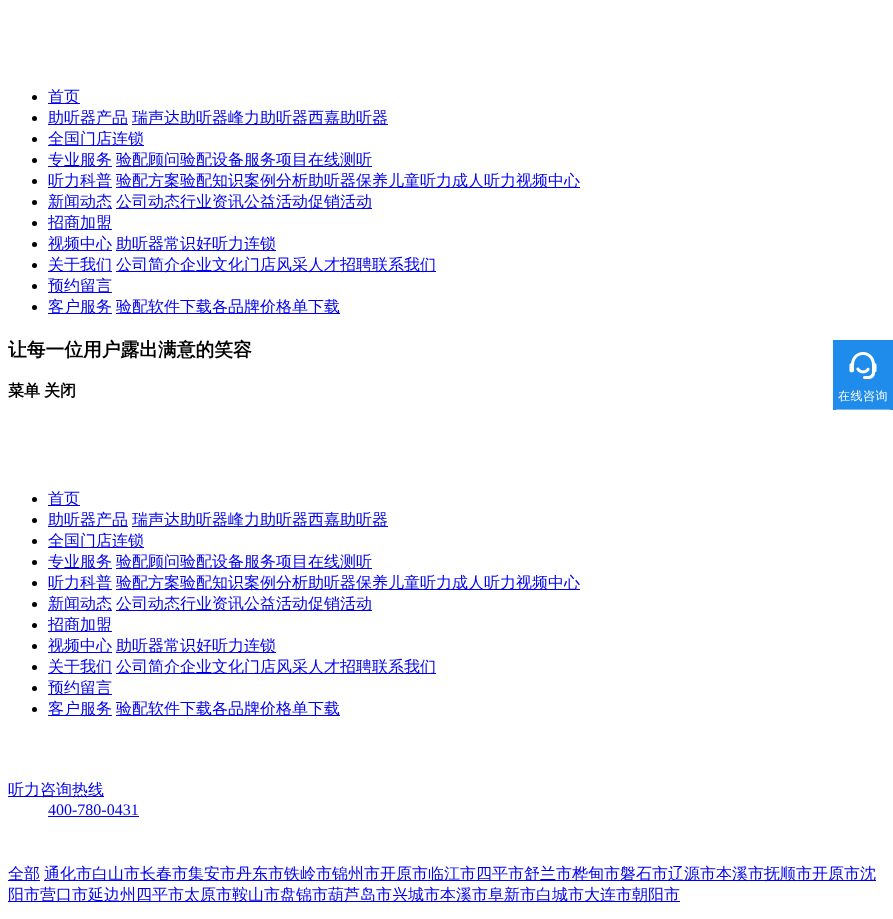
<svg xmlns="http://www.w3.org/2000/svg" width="893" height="919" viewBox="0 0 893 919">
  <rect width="100%" height="100%" fill="#ffffff"/>
  <circle cx="34.5" cy="97.5" r="2.5" fill="#000000"/>
  <rect x="48" y="103" width="32" height="1" fill="#0000ee"/>
  <text x="48" y="102" font-family="WenQuanYi Zen Hei" font-size="16" font-weight="500" fill="#0000ee">首页</text>
  <circle cx="34.5" cy="118.5" r="2.5" fill="#000000"/>
  <rect x="48" y="124" width="80" height="1" fill="#0000ee"/>
  <text x="48" y="123" font-family="WenQuanYi Zen Hei" font-size="16" font-weight="500" fill="#0000ee">助听器产品</text>
  <rect x="132" y="124" width="256" height="1" fill="#0000ee"/>
  <text x="132" y="123" font-family="WenQuanYi Zen Hei" font-size="16" font-weight="500" fill="#0000ee">瑞声达助听器峰力助听器西嘉助听器</text>
  <circle cx="34.5" cy="139.5" r="2.5" fill="#000000"/>
  <rect x="48" y="145" width="96" height="1" fill="#0000ee"/>
  <text x="48" y="144" font-family="WenQuanYi Zen Hei" font-size="16" font-weight="500" fill="#0000ee">全国门店连锁</text>
  <circle cx="34.5" cy="160.5" r="2.5" fill="#000000"/>
  <rect x="48" y="166" width="64" height="1" fill="#0000ee"/>
  <text x="48" y="165" font-family="WenQuanYi Zen Hei" font-size="16" font-weight="500" fill="#0000ee">专业服务</text>
  <rect x="116" y="166" width="256" height="1" fill="#0000ee"/>
  <text x="116" y="165" font-family="WenQuanYi Zen Hei" font-size="16" font-weight="500" fill="#0000ee">验配顾问验配设备服务项目在线测听</text>
  <circle cx="34.5" cy="181.5" r="2.5" fill="#000000"/>
  <rect x="48" y="187" width="64" height="1" fill="#0000ee"/>
  <text x="48" y="186" font-family="WenQuanYi Zen Hei" font-size="16" font-weight="500" fill="#0000ee">听力科普</text>
  <rect x="116" y="187" width="464" height="1" fill="#0000ee"/>
  <text x="116" y="186" font-family="WenQuanYi Zen Hei" font-size="16" font-weight="500" fill="#0000ee">验配方案验配知识案例分析助听器保养儿童听力成人听力视频中心</text>
  <circle cx="34.5" cy="202.5" r="2.5" fill="#000000"/>
  <rect x="48" y="208" width="64" height="1" fill="#0000ee"/>
  <text x="48" y="207" font-family="WenQuanYi Zen Hei" font-size="16" font-weight="500" fill="#0000ee">新闻动态</text>
  <rect x="116" y="208" width="256" height="1" fill="#0000ee"/>
  <text x="116" y="207" font-family="WenQuanYi Zen Hei" font-size="16" font-weight="500" fill="#0000ee">公司动态行业资讯公益活动促销活动</text>
  <circle cx="34.5" cy="223.5" r="2.5" fill="#000000"/>
  <rect x="48" y="229" width="64" height="1" fill="#0000ee"/>
  <text x="48" y="228" font-family="WenQuanYi Zen Hei" font-size="16" font-weight="500" fill="#0000ee">招商加盟</text>
  <circle cx="34.5" cy="244.5" r="2.5" fill="#000000"/>
  <rect x="48" y="250" width="64" height="1" fill="#0000ee"/>
  <text x="48" y="249" font-family="WenQuanYi Zen Hei" font-size="16" font-weight="500" fill="#0000ee">视频中心</text>
  <rect x="116" y="250" width="160" height="1" fill="#0000ee"/>
  <text x="116" y="249" font-family="WenQuanYi Zen Hei" font-size="16" font-weight="500" fill="#0000ee">助听器常识好听力连锁</text>
  <circle cx="34.5" cy="265.5" r="2.5" fill="#000000"/>
  <rect x="48" y="271" width="64" height="1" fill="#0000ee"/>
  <text x="48" y="270" font-family="WenQuanYi Zen Hei" font-size="16" font-weight="500" fill="#0000ee">关于我们</text>
  <rect x="116" y="271" width="320" height="1" fill="#0000ee"/>
  <text x="116" y="270" font-family="WenQuanYi Zen Hei" font-size="16" font-weight="500" fill="#0000ee">公司简介企业文化门店风采人才招聘联系我们</text>
  <circle cx="34.5" cy="286.5" r="2.5" fill="#000000"/>
  <rect x="48" y="292" width="64" height="1" fill="#0000ee"/>
  <text x="48" y="291" font-family="WenQuanYi Zen Hei" font-size="16" font-weight="500" fill="#0000ee">预约留言</text>
  <circle cx="34.5" cy="307.5" r="2.5" fill="#000000"/>
  <rect x="48" y="313" width="64" height="1" fill="#0000ee"/>
  <text x="48" y="312" font-family="WenQuanYi Zen Hei" font-size="16" font-weight="500" fill="#0000ee">客户服务</text>
  <rect x="116" y="313" width="224" height="1" fill="#0000ee"/>
  <text x="116" y="312" font-family="WenQuanYi Zen Hei" font-size="16" font-weight="500" fill="#0000ee">验配软件下载各品牌价格单下载</text>
  <text x="8" y="356" font-family="WenQuanYi Zen Hei" font-size="18.75" font-weight="bold" fill="#000000">让每一位用户露出满意的笑容</text>
  <text x="8" y="396" font-family="WenQuanYi Zen Hei" font-size="16" font-weight="bold" fill="#000000">菜单</text>
  <text x="44" y="396" font-family="WenQuanYi Zen Hei" font-size="16" font-weight="bold" fill="#000000">关闭</text>
  <circle cx="34.5" cy="499.5" r="2.5" fill="#000000"/>
  <rect x="48" y="505" width="32" height="1" fill="#0000ee"/>
  <text x="48" y="504" font-family="WenQuanYi Zen Hei" font-size="16" font-weight="500" fill="#0000ee">首页</text>
  <circle cx="34.5" cy="520.5" r="2.5" fill="#000000"/>
  <rect x="48" y="526" width="80" height="1" fill="#0000ee"/>
  <text x="48" y="525" font-family="WenQuanYi Zen Hei" font-size="16" font-weight="500" fill="#0000ee">助听器产品</text>
  <rect x="132" y="526" width="256" height="1" fill="#0000ee"/>
  <text x="132" y="525" font-family="WenQuanYi Zen Hei" font-size="16" font-weight="500" fill="#0000ee">瑞声达助听器峰力助听器西嘉助听器</text>
  <circle cx="34.5" cy="541.5" r="2.5" fill="#000000"/>
  <rect x="48" y="547" width="96" height="1" fill="#0000ee"/>
  <text x="48" y="546" font-family="WenQuanYi Zen Hei" font-size="16" font-weight="500" fill="#0000ee">全国门店连锁</text>
  <circle cx="34.5" cy="562.5" r="2.5" fill="#000000"/>
  <rect x="48" y="568" width="64" height="1" fill="#0000ee"/>
  <text x="48" y="567" font-family="WenQuanYi Zen Hei" font-size="16" font-weight="500" fill="#0000ee">专业服务</text>
  <rect x="116" y="568" width="256" height="1" fill="#0000ee"/>
  <text x="116" y="567" font-family="WenQuanYi Zen Hei" font-size="16" font-weight="500" fill="#0000ee">验配顾问验配设备服务项目在线测听</text>
  <circle cx="34.5" cy="583.5" r="2.5" fill="#000000"/>
  <rect x="48" y="589" width="64" height="1" fill="#0000ee"/>
  <text x="48" y="588" font-family="WenQuanYi Zen Hei" font-size="16" font-weight="500" fill="#0000ee">听力科普</text>
  <rect x="116" y="589" width="464" height="1" fill="#0000ee"/>
  <text x="116" y="588" font-family="WenQuanYi Zen Hei" font-size="16" font-weight="500" fill="#0000ee">验配方案验配知识案例分析助听器保养儿童听力成人听力视频中心</text>
  <circle cx="34.5" cy="604.5" r="2.5" fill="#000000"/>
  <rect x="48" y="610" width="64" height="1" fill="#0000ee"/>
  <text x="48" y="609" font-family="WenQuanYi Zen Hei" font-size="16" font-weight="500" fill="#0000ee">新闻动态</text>
  <rect x="116" y="610" width="256" height="1" fill="#0000ee"/>
  <text x="116" y="609" font-family="WenQuanYi Zen Hei" font-size="16" font-weight="500" fill="#0000ee">公司动态行业资讯公益活动促销活动</text>
  <circle cx="34.5" cy="625.5" r="2.5" fill="#000000"/>
  <rect x="48" y="631" width="64" height="1" fill="#0000ee"/>
  <text x="48" y="630" font-family="WenQuanYi Zen Hei" font-size="16" font-weight="500" fill="#0000ee">招商加盟</text>
  <circle cx="34.5" cy="646.5" r="2.5" fill="#000000"/>
  <rect x="48" y="652" width="64" height="1" fill="#0000ee"/>
  <text x="48" y="651" font-family="WenQuanYi Zen Hei" font-size="16" font-weight="500" fill="#0000ee">视频中心</text>
  <rect x="116" y="652" width="160" height="1" fill="#0000ee"/>
  <text x="116" y="651" font-family="WenQuanYi Zen Hei" font-size="16" font-weight="500" fill="#0000ee">助听器常识好听力连锁</text>
  <circle cx="34.5" cy="667.5" r="2.5" fill="#000000"/>
  <rect x="48" y="673" width="64" height="1" fill="#0000ee"/>
  <text x="48" y="672" font-family="WenQuanYi Zen Hei" font-size="16" font-weight="500" fill="#0000ee">关于我们</text>
  <rect x="116" y="673" width="320" height="1" fill="#0000ee"/>
  <text x="116" y="672" font-family="WenQuanYi Zen Hei" font-size="16" font-weight="500" fill="#0000ee">公司简介企业文化门店风采人才招聘联系我们</text>
  <circle cx="34.5" cy="688.5" r="2.5" fill="#000000"/>
  <rect x="48" y="694" width="64" height="1" fill="#0000ee"/>
  <text x="48" y="693" font-family="WenQuanYi Zen Hei" font-size="16" font-weight="500" fill="#0000ee">预约留言</text>
  <circle cx="34.5" cy="709.5" r="2.5" fill="#000000"/>
  <rect x="48" y="715" width="64" height="1" fill="#0000ee"/>
  <text x="48" y="714" font-family="WenQuanYi Zen Hei" font-size="16" font-weight="500" fill="#0000ee">客户服务</text>
  <rect x="116" y="715" width="224" height="1" fill="#0000ee"/>
  <text x="116" y="714" font-family="WenQuanYi Zen Hei" font-size="16" font-weight="500" fill="#0000ee">验配软件下载各品牌价格单下载</text>
  <rect x="8" y="796" width="96" height="1" fill="#0000ee"/>
  <text x="8" y="795" font-family="WenQuanYi Zen Hei" font-size="16" font-weight="500" fill="#0000ee">听力咨询热线</text>
  <text x="48" y="815" font-family="Liberation Serif" font-size="16" fill="#0000ee">400-780-0431</text>
  <rect x="48" y="816" width="91" height="1" fill="#0000ee"/>
  <rect x="833" y="340" width="60" height="70" fill="#1f8ceb"/>
  <image x="849" y="352" width="28" height="27" href="img1.png"/>
  <text x="838" y="400" font-family="WenQuanYi Zen Hei" font-size="12" font-weight="500" letter-spacing="0.5" fill="#ffffff">在线咨询</text>
  <rect x="836" y="409" width="54" height="1" fill="#79baf3"/>
  <rect x="8" y="880" width="32" height="1" fill="#0000ee"/>
  <text x="8" y="879" font-family="WenQuanYi Zen Hei" font-size="16" font-weight="500" fill="#0000ee">全部</text>
  <rect x="44" y="880" width="832" height="1" fill="#0000ee"/>
  <text x="44" y="879" font-family="WenQuanYi Zen Hei" font-size="16" font-weight="500" fill="#0000ee">通化市白山市长春市集安市丹东市铁岭市锦州市开原市临江市四平市舒兰市桦甸市磐石市辽源市本溪市抚顺市开原市沈</text>
  <rect x="8" y="901" width="672" height="1" fill="#0000ee"/>
  <text x="8" y="900" font-family="WenQuanYi Zen Hei" font-size="16" font-weight="500" fill="#0000ee">阳市营口市延边州四平市太原市鞍山市盘锦市葫芦岛市兴城市本溪市阜新市白城市大连市朝阳市</text>
</svg>
